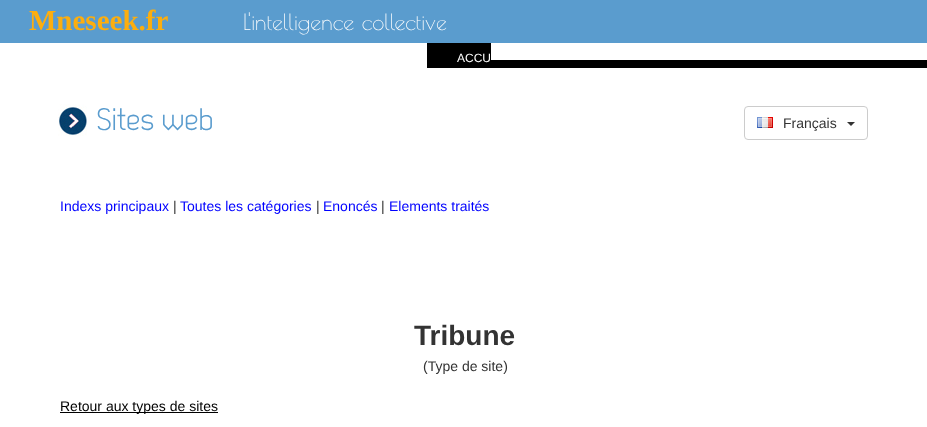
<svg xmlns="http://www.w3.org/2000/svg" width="927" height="427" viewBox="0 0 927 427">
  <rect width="100%" height="100%" fill="#ffffff"/>
  <rect x="0" y="0" width="927" height="43" fill="#5a9cce"/>
  <text x="29" y="30" font-family="Liberation Serif" font-size="29" font-weight="bold" fill="#fcae0e">Mneseek.fr</text>
  <text x="243" y="30" font-family="Poiret One" font-size="22" fill="#ffffff">L'intelligence collective</text>
  <rect x="427" y="43" width="112" height="25" fill="#000000"/>
  <text x="457" y="62" font-family="Liberation Sans" font-size="12" fill="#ffffff">ACCU</text>
  <rect x="539" y="60" width="388" height="8" fill="#000000"/>
  <rect x="491" y="43" width="48" height="17" fill="#ffffff"/>
  <rect x="744.5" y="106.5" width="123" height="33" rx="3.5" fill="none" stroke="#cccccc"/>
  <image x="757" y="117" width="16" height="11" href="img1.png"/>
  <text x="783" y="128" font-family="Liberation Sans" font-size="14" fill="#333333">Français</text>
  <path d="M847 122H855L851 126Z" fill="#333333"/>
  <image x="58" y="104" width="29" height="32" href="img2.png"/>
  <text x="97" y="130" font-family="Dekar" font-size="31" fill="#5a9cce">Sites web</text>
  <text x="60" y="211" font-family="Liberation Sans" font-size="14" fill="#0000ff">Indexs principaux</text>
  <text x="173" y="211" font-family="Liberation Sans" font-size="14" fill="#333333">|</text>
  <text x="180" y="211" font-family="Liberation Sans" font-size="14" fill="#0000ff">Toutes les catégories</text>
  <text x="316" y="211" font-family="Liberation Sans" font-size="14" fill="#333333">|</text>
  <text x="323" y="211" font-family="Liberation Sans" font-size="14" fill="#0000ff">Enoncés</text>
  <text x="381" y="211" font-family="Liberation Sans" font-size="14" fill="#333333">|</text>
  <text x="389" y="211" font-family="Liberation Sans" font-size="14" fill="#0000ff">Elements traités</text>
  <text x="414" y="345" font-family="Liberation Sans" font-size="28" font-weight="bold" fill="#333333">Tribune</text>
  <text x="423" y="371" font-family="Liberation Sans" font-size="14" fill="#333333">(Type de site)</text>
  <rect x="60" y="412" width="158" height="1" fill="#000000"/>
  <text x="60" y="411" font-family="Liberation Sans" font-size="14" fill="#000000">Retour aux types de sites</text>
</svg>
